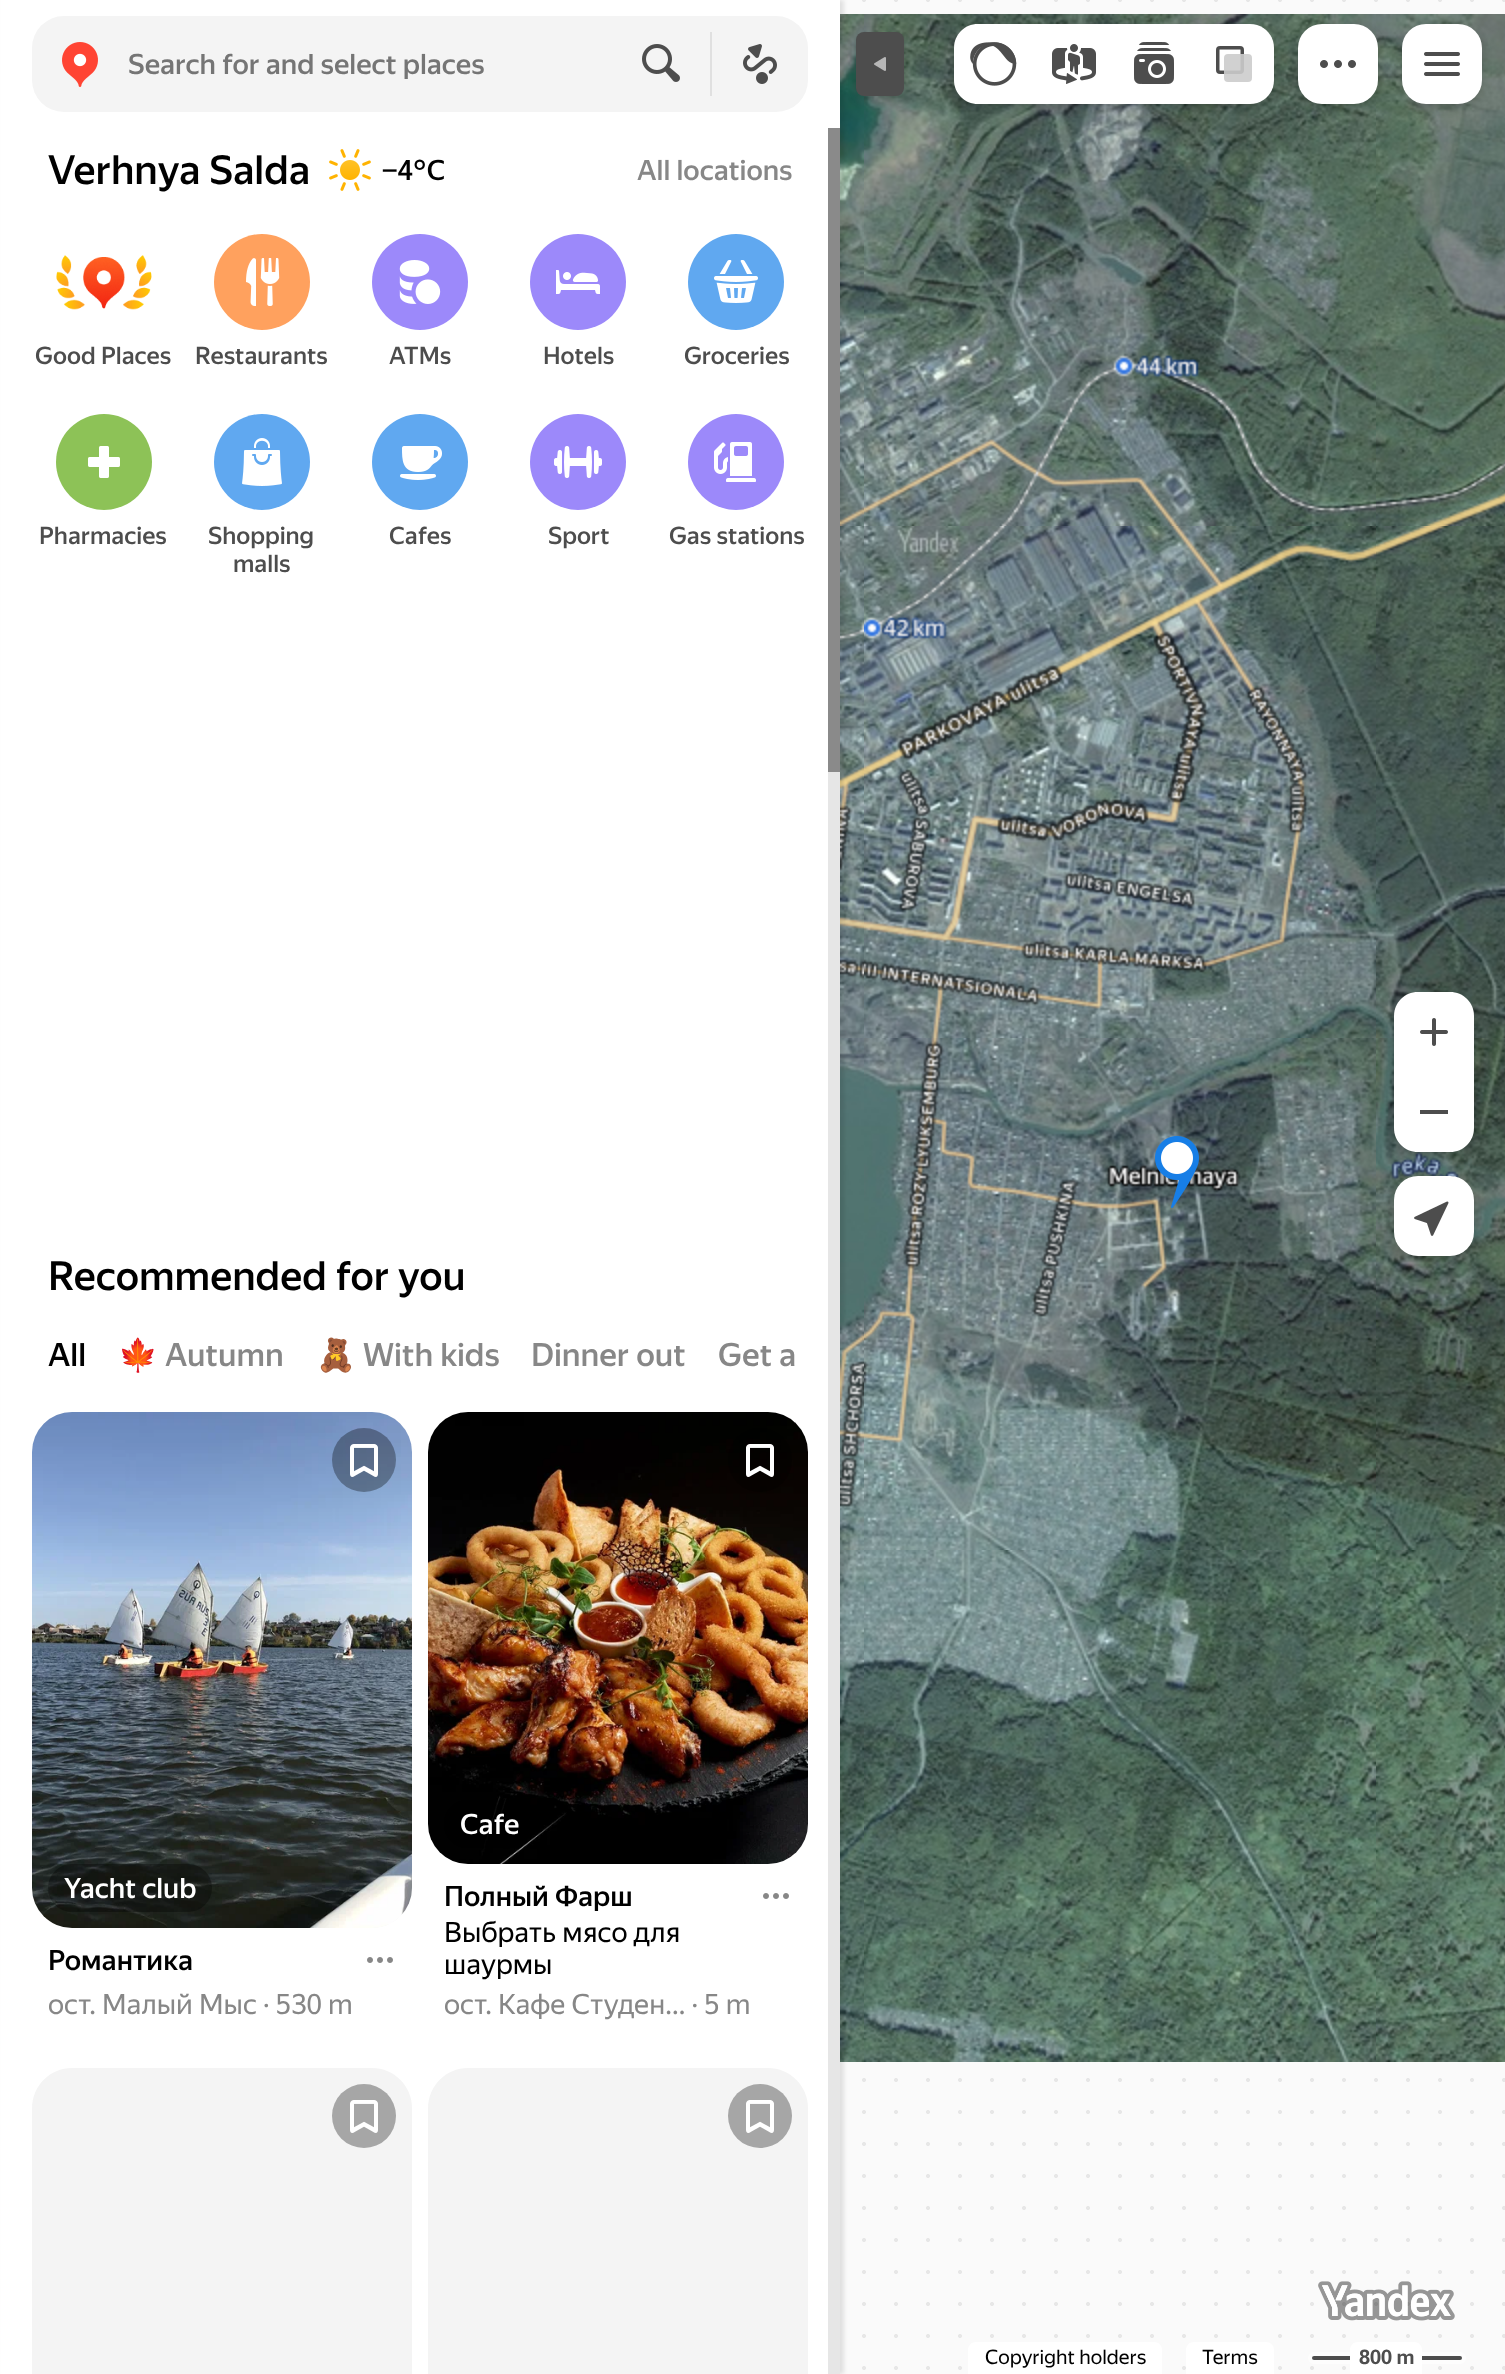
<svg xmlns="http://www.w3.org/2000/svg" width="1505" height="2374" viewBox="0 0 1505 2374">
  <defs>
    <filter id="blur1" x="-50%" y="-200%" width="200%" height="500%"><feGaussianBlur stdDeviation="2"/></filter>
    <filter id="blur2" x="-50%" y="-200%" width="200%" height="500%"><feGaussianBlur stdDeviation="6"/></filter>
  </defs>
  <rect width="100%" height="100%" fill="#ffffff"/>
  <image x="840" y="0" width="665" height="2374" href="img1.png"/>
  <image x="840" y="14" width="24" height="512" href="img2.png"/>
  <image x="864" y="14" width="512" height="512" href="img3.png"/>
  <image x="1376" y="14" width="129" height="512" href="img4.png"/>
  <image x="840" y="526" width="24" height="512" href="img5.png"/>
  <image x="864" y="526" width="512" height="512" href="img6.png"/>
  <image x="1376" y="526" width="129" height="512" href="img7.png"/>
  <image x="840" y="1038" width="24" height="512" href="img8.png"/>
  <image x="864" y="1038" width="512" height="512" href="img9.png"/>
  <image x="1376" y="1038" width="129" height="512" href="img10.png"/>
  <image x="840" y="1550" width="24" height="512" href="img11.png"/>
  <image x="864" y="1550" width="512" height="512" href="img12.png"/>
  <image x="1376" y="1550" width="129" height="512" href="img13.png"/>
  <image x="840" y="507" width="24" height="19" href="img14.png"/>
  <image x="864" y="355" width="512" height="171" href="img15.png"/>
  <image x="1376" y="462" width="129" height="64" href="img16.png"/>
  <image x="864" y="526" width="512" height="512" href="img17.png"/>
  <image x="1376" y="526" width="70" height="29" href="img18.png"/>
  <image x="840" y="621" width="24" height="358" href="img19.png"/>
  <image x="864" y="1038" width="377" height="405" href="img20.png"/>
  <image x="1391" y="1151" width="84" height="77" href="img21.png"/>
  <image x="840" y="1333" width="24" height="176" href="img22.png"/>
  <image x="1155" y="1136" width="44" height="72" href="img23.png"/>
  <rect x="4" y="0" width="840" height="2374" fill="#000000" fill-opacity="0.1" filter="url(#blur1)"/>
  <rect x="856" y="36" width="48" height="64" rx="8" fill="#000000" fill-opacity="0.2" filter="url(#blur2)"/>
  <rect x="1" y="0" width="839" height="2374" fill="#ffffff"/>
  <rect x="32" y="16" width="776" height="96" rx="32" fill="#f4f4f4"/>
  <image x="62" y="42" width="36" height="45" href="img24.png"/>
  <text x="128" y="74" font-family="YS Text" font-size="28" font-weight="500" fill="#757575">Search for and select places</text>
  <image x="642" y="44" width="38" height="38" href="img25.png"/>
  <rect x="710" y="32" width="2" height="64" fill="#e0e0e0"/>
  <image x="743" y="44" width="34" height="40" href="img26.png"/>
  <rect x="954" y="28" width="320" height="80" rx="24" fill="#000000" fill-opacity="0.2" filter="url(#blur2)"/>
  <path d="M978 24H1034V104H978C964.5 104 954 93.5 954 80V48C954 34.5 964.5 24 978 24Z" fill="#ffffff"/>
  <image x="970" y="42" width="47" height="44" href="img27.png"/>
  <rect x="1034" y="24" width="160" height="80" fill="#ffffff"/>
  <image x="1052" y="44" width="44" height="40" href="img28.png"/>
  <path d="M1194 24H1250C1263.5 24 1274 34.5 1274 48V80C1274 93.5 1263.5 104 1250 104H1194Z" fill="#ffffff"/>
  <image x="1216" y="46" width="36" height="36" href="img29.png"/>
  <image x="1134" y="42" width="40" height="42" href="img30.png"/>
  <rect x="1298" y="28" width="80" height="80" rx="24" fill="#000000" fill-opacity="0.2" filter="url(#blur2)"/>
  <rect x="1298" y="24" width="80" height="80" rx="24" fill="#ffffff"/>
  <image x="1320" y="60" width="36" height="8" href="img31.png"/>
  <rect x="1402" y="28" width="80" height="80" rx="24" fill="#000000" fill-opacity="0.2" filter="url(#blur2)"/>
  <rect x="1402" y="24" width="80" height="80" rx="24" fill="#ffffff"/>
  <image x="1424" y="52" width="36" height="24" href="img32.png"/>
  <rect x="1394" y="996" width="80" height="160" rx="24" fill="#000000" fill-opacity="0.2" filter="url(#blur2)"/>
  <path d="M1418 992H1450C1463.5 992 1474 1002.5 1474 1016V1072H1394V1016C1394 1002.5 1404.5 992 1418 992Z" fill="#ffffff"/>
  <image x="1420" y="1018" width="28" height="28" href="img33.png"/>
  <path d="M1394 1072H1474V1128C1474 1141.5 1463.5 1152 1450 1152H1418C1404.5 1152 1394 1141.5 1394 1128Z" fill="#ffffff"/>
  <rect x="1420" y="1110" width="28" height="4" fill="#4d4d4d"/>
  <rect x="1394" y="1180" width="80" height="80" rx="24" fill="#000000" fill-opacity="0.2" filter="url(#blur2)"/>
  <rect x="1394" y="1176" width="80" height="80" rx="24" fill="#ffffff"/>
  <image x="1414" y="1201" width="35" height="35" href="img34.png"/>
  <rect x="856" y="32" width="48" height="64" rx="8" fill="#4d4d4d"/>
  <image x="874" y="57" width="12" height="14" href="img35.png"/>
  <text x="48" y="184" font-family="YS Text" font-size="40" font-weight="500" fill="#000000">Verhnya Salda</text>
  <image x="329" y="149" width="42" height="42" href="img36.png"/>
  <text x="382" y="180" font-family="YS Text" font-size="28" font-weight="500" fill="#000000">−4°C</text>
  <text x="637" y="180" font-family="YS Text" font-size="28" font-weight="500" fill="#878787">All locations</text>
  <image x="56" y="255" width="96" height="55" href="img37.png"/>
  <text x="35" y="364" font-family="YS Text" font-size="24" font-weight="500" fill="#4d4d4d">Good Places</text>
  <circle cx="262" cy="282" r="48" fill="#ffa15e"/>
  <image x="246" y="258" width="34" height="48" href="img38.png"/>
  <text x="195" y="364" font-family="YS Text" font-size="24" font-weight="500" fill="#4d4d4d">Restaurants</text>
  <circle cx="420" cy="282" r="48" fill="#9c89fa"/>
  <image x="399" y="260" width="42" height="44" href="img39.png"/>
  <text x="389" y="364" font-family="YS Text" font-size="24" font-weight="500" fill="#4d4d4d">ATMs</text>
  <circle cx="578" cy="282" r="48" fill="#9c89fa"/>
  <image x="556" y="270" width="44" height="24" href="img40.png"/>
  <text x="543" y="364" font-family="YS Text" font-size="24" font-weight="500" fill="#4d4d4d">Hotels</text>
  <circle cx="736" cy="282" r="48" fill="#60a8f0"/>
  <image x="714" y="260" width="44" height="43" href="img41.png"/>
  <text x="684" y="364" font-family="YS Text" font-size="24" font-weight="500" fill="#4d4d4d">Groceries</text>
  <circle cx="104" cy="462" r="48" fill="#8dc257"/>
  <image x="88" y="446" width="32" height="32" href="img42.png"/>
  <text x="39" y="544" font-family="YS Text" font-size="24" font-weight="500" fill="#4d4d4d">Pharmacies</text>
  <circle cx="262" cy="462" r="48" fill="#60a8f0"/>
  <image x="242" y="438" width="40" height="48" href="img43.png"/>
  <text x="208" y="544" font-family="YS Text" font-size="24" font-weight="500" fill="#4d4d4d">Shopping</text>
  <text x="233" y="572" font-family="YS Text" font-size="24" font-weight="500" fill="#4d4d4d">malls</text>
  <circle cx="420" cy="462" r="48" fill="#60a8f0"/>
  <image x="400" y="446" width="42" height="34" href="img44.png"/>
  <text x="389" y="544" font-family="YS Text" font-size="24" font-weight="500" fill="#4d4d4d">Cafes</text>
  <circle cx="578" cy="462" r="48" fill="#9c89fa"/>
  <image x="554" y="446" width="48" height="32" href="img45.png"/>
  <text x="548" y="544" font-family="YS Text" font-size="24" font-weight="500" fill="#4d4d4d">Sport</text>
  <circle cx="736" cy="462" r="48" fill="#9c89fa"/>
  <image x="714" y="442" width="42" height="40" href="img46.png"/>
  <text x="669" y="544" font-family="YS Text" font-size="24" font-weight="500" fill="#4d4d4d">Gas stations</text>
  <text x="48" y="1290" font-family="YS Text" font-size="40" font-weight="500" fill="#000000">Recommended for you</text>
  <text x="48" y="1366" font-family="YS Text" font-size="32" font-weight="500" fill="#000000">All</text>
  <text x="118" y="1366" font-family="Noto Color Emoji" font-size="32" fill="#878787">🍁</text>
  <text x="165" y="1366" font-family="YS Text" font-size="32" font-weight="500" fill="#878787">Autumn</text>
  <text x="316" y="1366" font-family="Noto Color Emoji" font-size="32" fill="#878787">🧸</text>
  <text x="363" y="1366" font-family="YS Text" font-size="32" font-weight="500" fill="#878787">With kids</text>
  <text x="531" y="1366" font-family="YS Text" font-size="32" font-weight="500" fill="#878787">Dinner out</text>
  <text x="718" y="1366" font-family="YS Text" font-size="32" font-weight="500" fill="#878787">Get a</text>
  <rect x="32" y="1412" width="380" height="516" rx="40" fill="#f4f4f4"/>
  <image x="32" y="1412" width="380" height="516" href="img47.png"/>
  <circle cx="364" cy="1460" r="32" fill="#000000" fill-opacity="0.32"/>
  <image x="350" y="1444" width="28" height="33" href="img48.png"/>
  <rect x="48" y="1864" width="164" height="48" rx="24" fill="#000000" fill-opacity="0.32"/>
  <text x="64" y="1898" font-family="YS Text" font-size="28" font-weight="500" fill="#ffffff">Yacht club</text>
  <text x="48" y="1970" font-family="YS Text" font-size="28" font-weight="500" fill="#000000">Романтика</text>
  <image x="367" y="1957" width="26" height="6" href="img49.png"/>
  <text x="48" y="2014" font-family="YS Text" font-size="28" fill="#878787">ост. Малый Мыс · 530 m</text>
  <rect x="428" y="1412" width="380" height="452" rx="40" fill="#f4f4f4"/>
  <image x="428" y="1412" width="380" height="452" href="img50.png"/>
  <circle cx="760" cy="1460" r="32" fill="#000000" fill-opacity="0.32"/>
  <image x="746" y="1444" width="28" height="33" href="img51.png"/>
  <rect x="444" y="1800" width="92" height="48" rx="24" fill="#000000" fill-opacity="0.32"/>
  <text x="460" y="1834" font-family="YS Text" font-size="28" font-weight="500" fill="#ffffff">Cafe</text>
  <text x="444" y="1906" font-family="YS Text" font-size="28" font-weight="500" fill="#000000">Полный Фарш</text>
  <image x="763" y="1893" width="26" height="6" href="img49.png"/>
  <text x="444" y="1942" font-family="YS Text" font-size="28" fill="#000000">Выбрать мясо для</text>
  <text x="444" y="1974" font-family="YS Text" font-size="28" fill="#000000">шаурмы</text>
  <text x="444" y="2014" font-family="YS Text" font-size="28" fill="#878787">ост. Кафе Студен… · 5 m</text>
  <path d="M72 2068H372C394 2068 412 2086 412 2108V2374H32V2108C32 2086 50 2068 72 2068Z" fill="#f4f4f4"/>
  <circle cx="364" cy="2116" r="32" fill="#a6a6a6"/>
  <image x="350" y="2100" width="28" height="33" href="img52.png"/>
  <path d="M468 2068H768C790 2068 808 2086 808 2108V2374H428V2108C428 2086 446 2068 468 2068Z" fill="#f4f4f4"/>
  <circle cx="760" cy="2116" r="32" fill="#a6a6a6"/>
  <image x="746" y="2100" width="28" height="33" href="img52.png"/>
  <rect x="828" y="128" width="12" height="644" fill="#8a8a8a"/>
  <rect x="828" y="772" width="12" height="1602" fill="#e6e6e6"/>
  <image x="1318" y="2281" width="137" height="40" href="img53.png"/>
  <path d="M976 2342H1154C1158.5 2342 1162 2345.5 1162 2350V2374H968V2350C968 2345.5 971.5 2342 976 2342Z" fill="#ffffff"/>
  <text x="985" y="2364" font-family="YS Text" font-size="20" fill="#000000">Copyright holders</text>
  <path d="M1194 2342H1266C1270.5 2342 1274 2345.5 1274 2350V2374H1186V2350C1186 2345.5 1189.5 2342 1194 2342Z" fill="#ffffff"/>
  <text x="1202" y="2364" font-family="YS Text" font-size="20" fill="#000000">Terms</text>
  <rect x="1308" y="2352" width="158" height="12" rx="6" fill="#fdfdfd"/>
  <rect x="1312" y="2356" width="150" height="4" rx="2" fill="#4d4d4d"/>
  <path d="M1358 2342H1414C1418.5 2342 1422 2345.5 1422 2350V2374H1350V2350C1350 2345.5 1353.5 2342 1358 2342Z" fill="#ffffff"/>
  <text x="1359" y="2364" font-family="YS Text" font-size="20" font-weight="bold" fill="#4d4d4d">800 m</text>
</svg>
